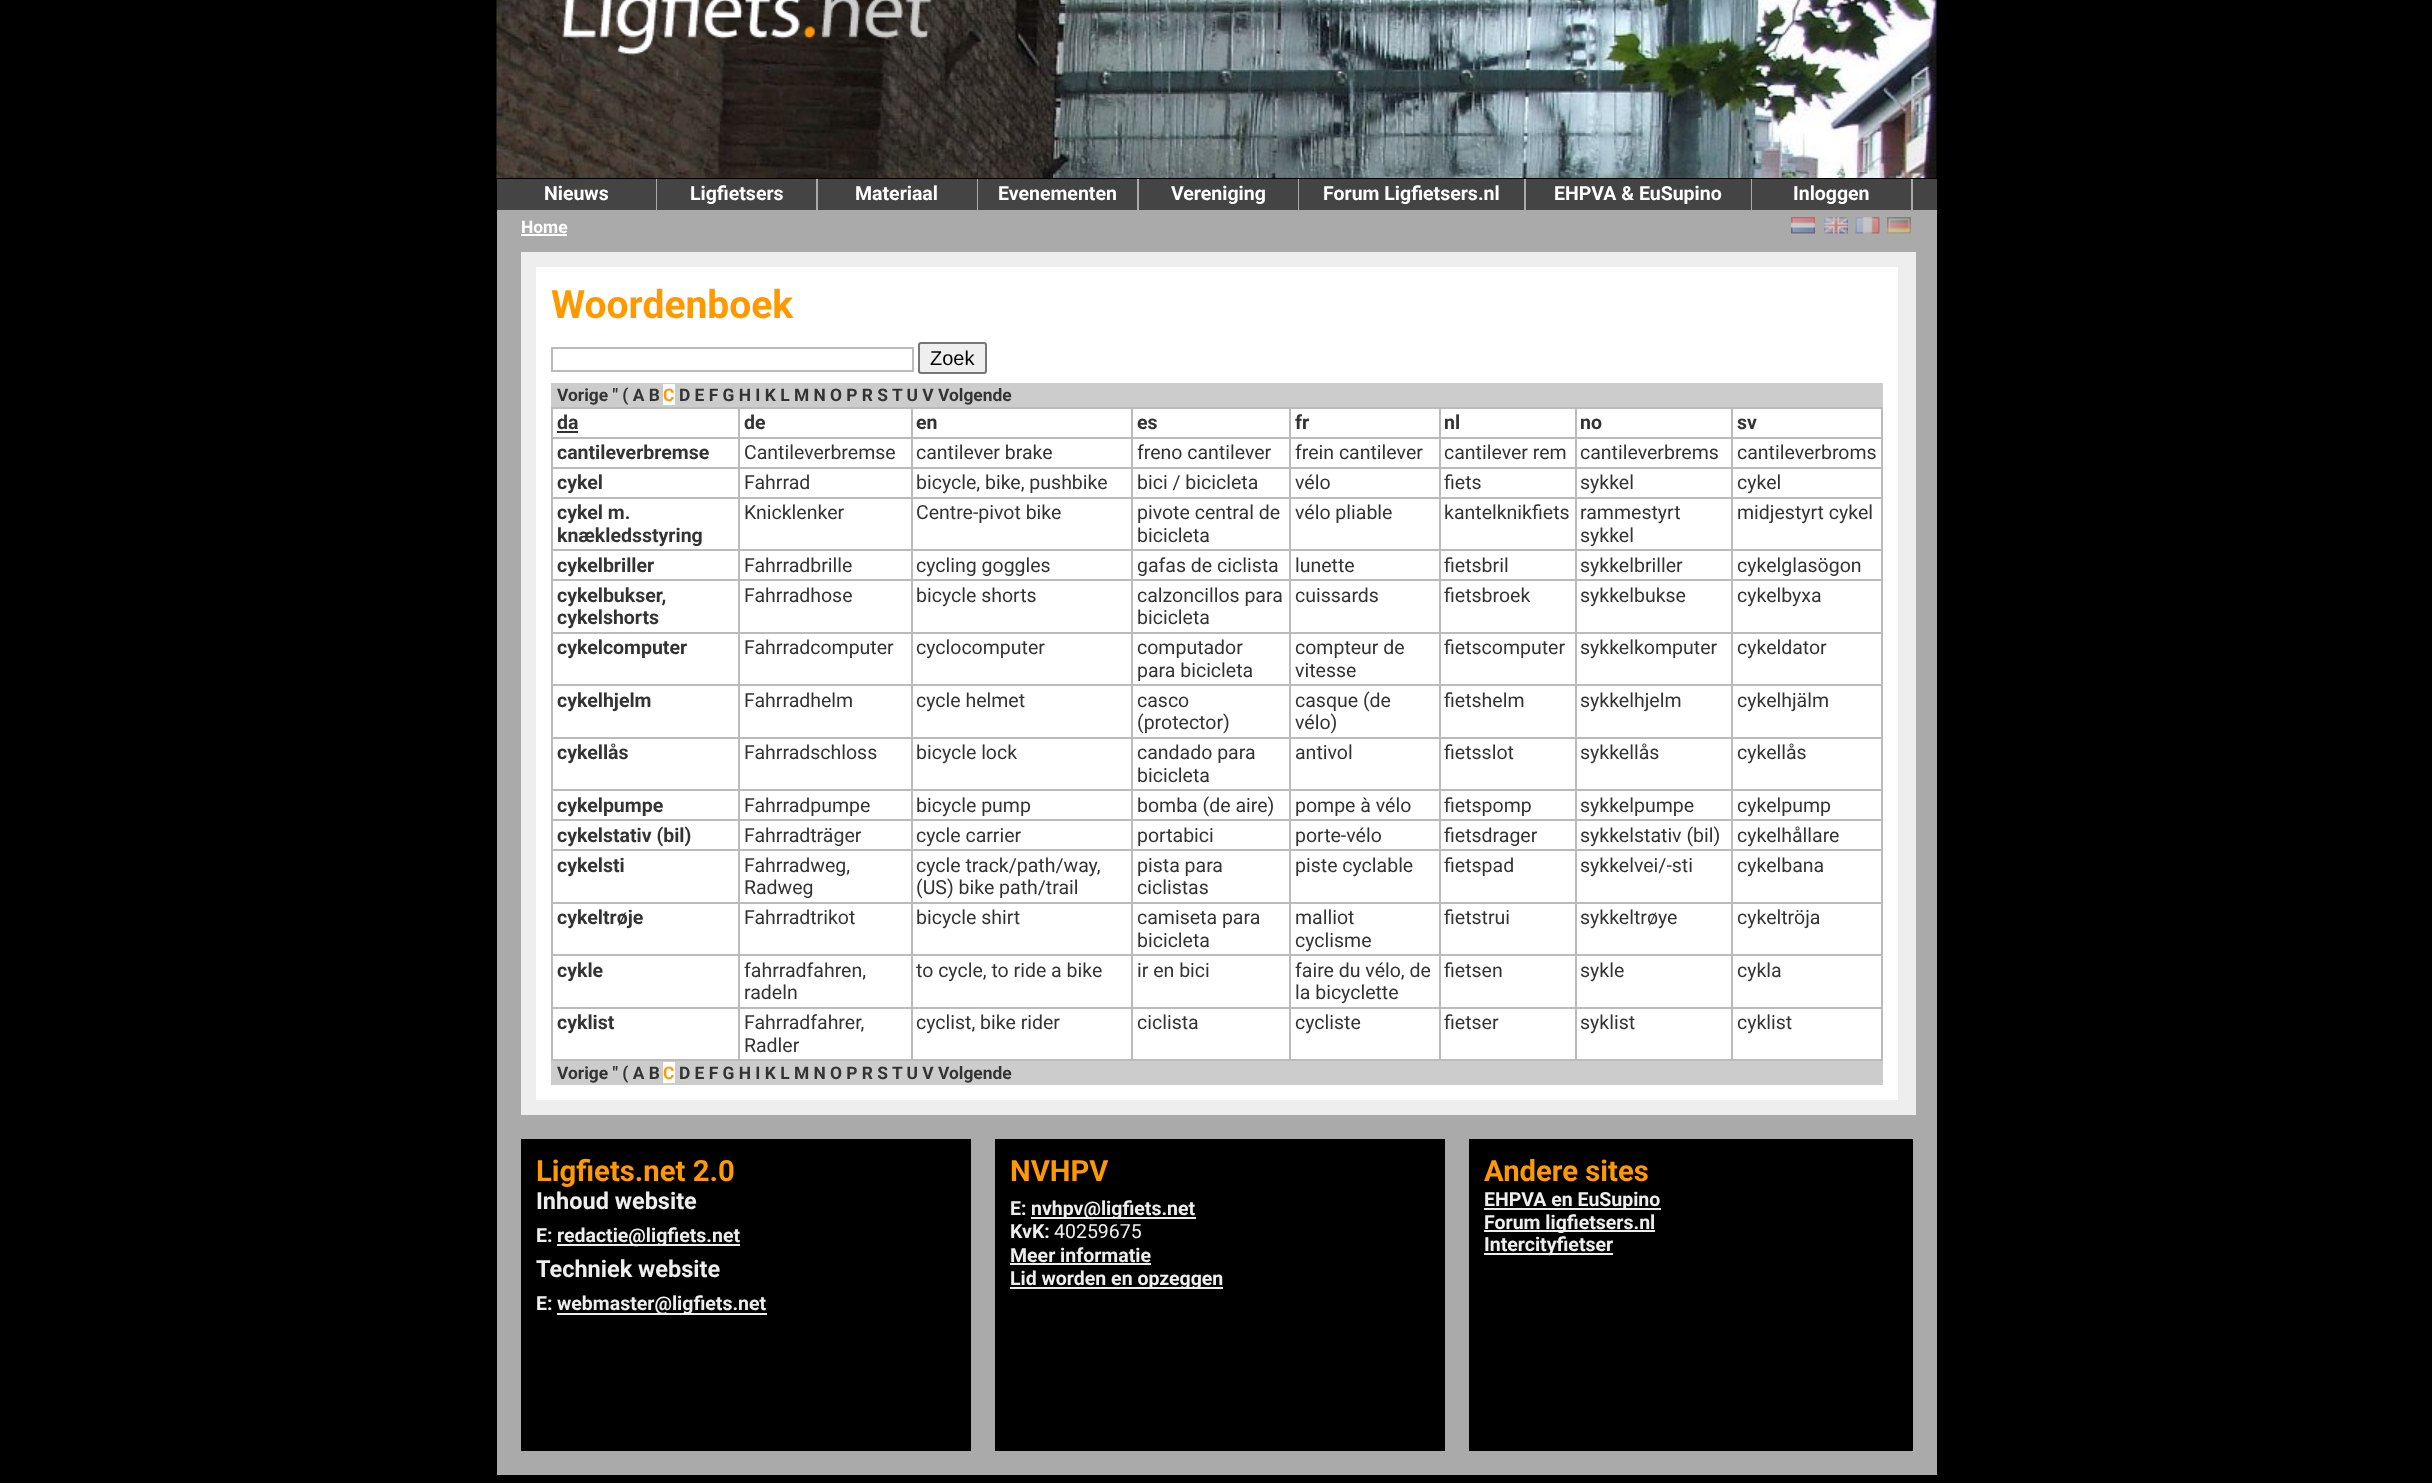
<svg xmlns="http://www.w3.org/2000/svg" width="2432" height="1483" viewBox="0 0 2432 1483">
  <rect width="100%" height="100%" fill="#000000"/>
  <image x="496" y="0" width="1441" height="178" href="img1.png"/>
  <image x="562" y="0" width="370" height="56" href="img2.png"/>
  <rect x="497" y="179" width="1440" height="31" fill="#444444"/>
  <rect x="656" y="179" width="1" height="31" fill="#aaaaaa"/>
  <text x="544" y="200" font-family="Roboto" font-size="19.5" font-weight="bold" fill="#ffffff">Nieuws</text>
  <rect x="816" y="179" width="2" height="31" fill="#aaaaaa"/>
  <text x="690" y="200" font-family="Roboto" font-size="19.5" font-weight="bold" fill="#ffffff">Ligfietsers</text>
  <rect x="977" y="179" width="1" height="31" fill="#aaaaaa"/>
  <text x="855" y="200" font-family="Roboto" font-size="19.5" font-weight="bold" fill="#ffffff">Materiaal</text>
  <rect x="1137" y="179" width="2" height="31" fill="#aaaaaa"/>
  <text x="998" y="200" font-family="Roboto" font-size="19.5" font-weight="bold" fill="#ffffff">Evenementen</text>
  <rect x="1298" y="179" width="1" height="31" fill="#aaaaaa"/>
  <text x="1171" y="200" font-family="Roboto" font-size="19.5" font-weight="bold" fill="#ffffff">Vereniging</text>
  <rect x="1524" y="179" width="2" height="31" fill="#aaaaaa"/>
  <text x="1323" y="200" font-family="Roboto" font-size="19.5" font-weight="bold" fill="#ffffff">Forum Ligfietsers.nl</text>
  <rect x="1751" y="179" width="1" height="31" fill="#aaaaaa"/>
  <text x="1554" y="200" font-family="Roboto" font-size="19.5" font-weight="bold" fill="#ffffff">EHPVA &amp; EuSupino</text>
  <rect x="1911" y="179" width="2" height="31" fill="#aaaaaa"/>
  <text x="1793" y="200" font-family="Roboto" font-size="19.5" font-weight="bold" fill="#ffffff">Inloggen</text>
  <rect x="497" y="210" width="1440" height="1265" fill="#aaaaaa"/>
  <text x="521" y="233" font-family="Roboto" font-size="17.4" font-weight="bold" fill="#ffffff">Home</text>
  <rect x="521" y="234" width="46" height="2" fill="#ffffff"/>
  <image x="1791" y="217" width="24" height="17" href="img3.png"/>
  <image x="1824" y="217" width="24" height="17" href="img4.png"/>
  <image x="1855" y="217" width="25" height="17" href="img5.png"/>
  <image x="1887" y="217" width="24" height="17" href="img6.png"/>
  <rect x="521" y="252" width="1395" height="863" fill="#eeeeee"/>
  <rect x="536" y="267" width="1362" height="833" fill="#ffffff"/>
  <text x="551" y="318" font-family="Roboto" font-size="39" font-weight="bold" fill="#ff9900">Woordenboek</text>
  <rect x="552" y="348" width="361" height="23" fill="none" stroke="#bbbbbb" stroke-width="2"/>
  <rect x="919" y="343" width="67" height="30" rx="2" fill="#efefef" stroke="#767676" stroke-width="2"/>
  <text x="930" y="365" font-family="Liberation Sans" font-size="20" fill="#000000">Zoek</text>
  <rect x="551" y="383" width="1332" height="24" fill="#cccccc"/>
  <text x="557" y="401" font-family="Roboto" font-size="17.4" font-weight="bold" fill="#333333">Vorige " ( A B</text>
  <rect x="663" y="384" width="12" height="21" fill="#ffffff"/>
  <text x="663" y="401" font-family="Roboto" font-size="17.4" font-weight="bold" fill="#ff9900">C</text>
  <text x="679" y="401" font-family="Roboto" font-size="17.4" font-weight="bold" fill="#333333">D E F G H I K L M N O P R S T U V Volgende</text>
  <rect x="551" y="407" width="1332" height="2" fill="#bbbbbb"/>
  <rect x="1881" y="407" width="2" height="654" fill="#bbbbbb"/>
  <rect x="551" y="1059" width="1332" height="2" fill="#bbbbbb"/>
  <rect x="551" y="407" width="2" height="654" fill="#bbbbbb"/>
  <text x="557" y="429" font-family="Roboto" font-size="19.5" font-weight="bold" fill="#333333">da</text>
  <rect x="557" y="431" width="21" height="2" fill="#333333"/>
  <rect x="1731" y="437" width="152" height="2" fill="#bbbbbb"/>
  <rect x="1731" y="467" width="152" height="2" fill="#bbbbbb"/>
  <rect x="1731" y="497" width="152" height="2" fill="#bbbbbb"/>
  <rect x="1731" y="549" width="152" height="2" fill="#bbbbbb"/>
  <rect x="1731" y="579" width="152" height="2" fill="#bbbbbb"/>
  <rect x="1731" y="632" width="152" height="2" fill="#bbbbbb"/>
  <rect x="1731" y="684" width="152" height="2" fill="#bbbbbb"/>
  <rect x="1731" y="737" width="152" height="2" fill="#bbbbbb"/>
  <rect x="1731" y="789" width="152" height="2" fill="#bbbbbb"/>
  <rect x="1731" y="819" width="152" height="2" fill="#bbbbbb"/>
  <rect x="1731" y="849" width="152" height="2" fill="#bbbbbb"/>
  <rect x="1731" y="902" width="152" height="2" fill="#bbbbbb"/>
  <rect x="1731" y="954" width="152" height="2" fill="#bbbbbb"/>
  <rect x="1731" y="1007" width="152" height="2" fill="#bbbbbb"/>
  <rect x="1731" y="1007" width="2" height="54" fill="#bbbbbb"/>
  <rect x="1575" y="1007" width="158" height="2" fill="#bbbbbb"/>
  <rect x="1731" y="954" width="2" height="54" fill="#bbbbbb"/>
  <rect x="1575" y="954" width="158" height="2" fill="#bbbbbb"/>
  <rect x="1731" y="902" width="2" height="54" fill="#bbbbbb"/>
  <rect x="1575" y="902" width="158" height="2" fill="#bbbbbb"/>
  <rect x="1731" y="849" width="2" height="54" fill="#bbbbbb"/>
  <rect x="1575" y="849" width="158" height="2" fill="#bbbbbb"/>
  <rect x="1731" y="819" width="2" height="32" fill="#bbbbbb"/>
  <rect x="1575" y="819" width="158" height="2" fill="#bbbbbb"/>
  <rect x="1731" y="789" width="2" height="32" fill="#bbbbbb"/>
  <rect x="1575" y="789" width="158" height="2" fill="#bbbbbb"/>
  <rect x="1731" y="737" width="2" height="54" fill="#bbbbbb"/>
  <rect x="1575" y="737" width="158" height="2" fill="#bbbbbb"/>
  <rect x="1731" y="684" width="2" height="54" fill="#bbbbbb"/>
  <rect x="1575" y="684" width="158" height="2" fill="#bbbbbb"/>
  <rect x="1731" y="632" width="2" height="54" fill="#bbbbbb"/>
  <rect x="1575" y="632" width="158" height="2" fill="#bbbbbb"/>
  <rect x="1731" y="579" width="2" height="54" fill="#bbbbbb"/>
  <rect x="1575" y="579" width="158" height="2" fill="#bbbbbb"/>
  <rect x="1731" y="549" width="2" height="32" fill="#bbbbbb"/>
  <rect x="1575" y="549" width="158" height="2" fill="#bbbbbb"/>
  <rect x="1731" y="497" width="2" height="54" fill="#bbbbbb"/>
  <rect x="1575" y="497" width="158" height="2" fill="#bbbbbb"/>
  <rect x="1731" y="467" width="2" height="31" fill="#bbbbbb"/>
  <rect x="1575" y="467" width="158" height="2" fill="#bbbbbb"/>
  <rect x="1731" y="437" width="2" height="31" fill="#bbbbbb"/>
  <rect x="1575" y="437" width="158" height="2" fill="#bbbbbb"/>
  <rect x="1575" y="1007" width="2" height="54" fill="#bbbbbb"/>
  <rect x="1439" y="1007" width="138" height="2" fill="#bbbbbb"/>
  <rect x="1575" y="954" width="2" height="54" fill="#bbbbbb"/>
  <rect x="1439" y="954" width="138" height="2" fill="#bbbbbb"/>
  <rect x="1575" y="902" width="2" height="54" fill="#bbbbbb"/>
  <rect x="1439" y="902" width="138" height="2" fill="#bbbbbb"/>
  <rect x="1575" y="849" width="2" height="54" fill="#bbbbbb"/>
  <rect x="1439" y="849" width="138" height="2" fill="#bbbbbb"/>
  <rect x="1575" y="819" width="2" height="32" fill="#bbbbbb"/>
  <rect x="1439" y="819" width="138" height="2" fill="#bbbbbb"/>
  <rect x="1575" y="789" width="2" height="32" fill="#bbbbbb"/>
  <rect x="1439" y="789" width="138" height="2" fill="#bbbbbb"/>
  <rect x="1575" y="737" width="2" height="54" fill="#bbbbbb"/>
  <rect x="1439" y="737" width="138" height="2" fill="#bbbbbb"/>
  <rect x="1575" y="684" width="2" height="54" fill="#bbbbbb"/>
  <rect x="1439" y="684" width="138" height="2" fill="#bbbbbb"/>
  <rect x="1575" y="632" width="2" height="54" fill="#bbbbbb"/>
  <rect x="1439" y="632" width="138" height="2" fill="#bbbbbb"/>
  <rect x="1575" y="579" width="2" height="54" fill="#bbbbbb"/>
  <rect x="1439" y="579" width="138" height="2" fill="#bbbbbb"/>
  <rect x="1575" y="549" width="2" height="32" fill="#bbbbbb"/>
  <rect x="1439" y="549" width="138" height="2" fill="#bbbbbb"/>
  <rect x="1575" y="497" width="2" height="54" fill="#bbbbbb"/>
  <rect x="1439" y="497" width="138" height="2" fill="#bbbbbb"/>
  <rect x="1575" y="467" width="2" height="31" fill="#bbbbbb"/>
  <rect x="1439" y="467" width="138" height="2" fill="#bbbbbb"/>
  <rect x="1575" y="437" width="2" height="31" fill="#bbbbbb"/>
  <rect x="1439" y="437" width="138" height="2" fill="#bbbbbb"/>
  <rect x="1439" y="1007" width="2" height="54" fill="#bbbbbb"/>
  <rect x="1289" y="1007" width="151" height="2" fill="#bbbbbb"/>
  <rect x="1439" y="954" width="2" height="54" fill="#bbbbbb"/>
  <rect x="1289" y="954" width="151" height="2" fill="#bbbbbb"/>
  <rect x="1439" y="902" width="2" height="54" fill="#bbbbbb"/>
  <rect x="1289" y="902" width="151" height="2" fill="#bbbbbb"/>
  <rect x="1439" y="849" width="2" height="54" fill="#bbbbbb"/>
  <rect x="1289" y="849" width="151" height="2" fill="#bbbbbb"/>
  <rect x="1439" y="819" width="2" height="32" fill="#bbbbbb"/>
  <rect x="1289" y="819" width="151" height="2" fill="#bbbbbb"/>
  <rect x="1439" y="789" width="2" height="32" fill="#bbbbbb"/>
  <rect x="1289" y="789" width="151" height="2" fill="#bbbbbb"/>
  <rect x="1439" y="737" width="2" height="54" fill="#bbbbbb"/>
  <rect x="1289" y="737" width="151" height="2" fill="#bbbbbb"/>
  <rect x="1439" y="684" width="2" height="54" fill="#bbbbbb"/>
  <rect x="1289" y="684" width="151" height="2" fill="#bbbbbb"/>
  <rect x="1439" y="632" width="2" height="54" fill="#bbbbbb"/>
  <rect x="1289" y="632" width="151" height="2" fill="#bbbbbb"/>
  <rect x="1439" y="579" width="2" height="54" fill="#bbbbbb"/>
  <rect x="1289" y="579" width="151" height="2" fill="#bbbbbb"/>
  <rect x="1439" y="549" width="2" height="32" fill="#bbbbbb"/>
  <rect x="1289" y="549" width="151" height="2" fill="#bbbbbb"/>
  <rect x="1439" y="497" width="2" height="54" fill="#bbbbbb"/>
  <rect x="1289" y="497" width="151" height="2" fill="#bbbbbb"/>
  <rect x="1439" y="467" width="2" height="31" fill="#bbbbbb"/>
  <rect x="1289" y="467" width="151" height="2" fill="#bbbbbb"/>
  <rect x="1439" y="437" width="2" height="31" fill="#bbbbbb"/>
  <rect x="1289" y="437" width="151" height="2" fill="#bbbbbb"/>
  <rect x="1289" y="1007" width="2" height="54" fill="#bbbbbb"/>
  <rect x="1131" y="1007" width="159" height="2" fill="#bbbbbb"/>
  <rect x="1289" y="954" width="2" height="54" fill="#bbbbbb"/>
  <rect x="1131" y="954" width="159" height="2" fill="#bbbbbb"/>
  <rect x="1289" y="902" width="2" height="54" fill="#bbbbbb"/>
  <rect x="1131" y="902" width="159" height="2" fill="#bbbbbb"/>
  <rect x="1289" y="849" width="2" height="54" fill="#bbbbbb"/>
  <rect x="1131" y="849" width="159" height="2" fill="#bbbbbb"/>
  <rect x="1289" y="819" width="2" height="32" fill="#bbbbbb"/>
  <rect x="1131" y="819" width="159" height="2" fill="#bbbbbb"/>
  <rect x="1289" y="789" width="2" height="32" fill="#bbbbbb"/>
  <rect x="1131" y="789" width="159" height="2" fill="#bbbbbb"/>
  <rect x="1289" y="737" width="2" height="54" fill="#bbbbbb"/>
  <rect x="1131" y="737" width="159" height="2" fill="#bbbbbb"/>
  <rect x="1289" y="684" width="2" height="54" fill="#bbbbbb"/>
  <rect x="1131" y="684" width="159" height="2" fill="#bbbbbb"/>
  <rect x="1289" y="632" width="2" height="54" fill="#bbbbbb"/>
  <rect x="1131" y="632" width="159" height="2" fill="#bbbbbb"/>
  <rect x="1289" y="579" width="2" height="54" fill="#bbbbbb"/>
  <rect x="1131" y="579" width="159" height="2" fill="#bbbbbb"/>
  <rect x="1289" y="549" width="2" height="32" fill="#bbbbbb"/>
  <rect x="1131" y="549" width="159" height="2" fill="#bbbbbb"/>
  <rect x="1289" y="497" width="2" height="54" fill="#bbbbbb"/>
  <rect x="1131" y="497" width="159" height="2" fill="#bbbbbb"/>
  <rect x="1289" y="467" width="2" height="31" fill="#bbbbbb"/>
  <rect x="1131" y="467" width="159" height="2" fill="#bbbbbb"/>
  <rect x="1289" y="437" width="2" height="31" fill="#bbbbbb"/>
  <rect x="1131" y="437" width="159" height="2" fill="#bbbbbb"/>
  <rect x="1131" y="1007" width="2" height="54" fill="#bbbbbb"/>
  <rect x="911" y="1007" width="222" height="2" fill="#bbbbbb"/>
  <rect x="1131" y="954" width="2" height="54" fill="#bbbbbb"/>
  <rect x="911" y="954" width="222" height="2" fill="#bbbbbb"/>
  <rect x="1131" y="902" width="2" height="54" fill="#bbbbbb"/>
  <rect x="911" y="902" width="222" height="2" fill="#bbbbbb"/>
  <rect x="1131" y="849" width="2" height="54" fill="#bbbbbb"/>
  <rect x="911" y="849" width="222" height="2" fill="#bbbbbb"/>
  <rect x="1131" y="819" width="2" height="32" fill="#bbbbbb"/>
  <rect x="911" y="819" width="222" height="2" fill="#bbbbbb"/>
  <rect x="1131" y="789" width="2" height="32" fill="#bbbbbb"/>
  <rect x="911" y="789" width="222" height="2" fill="#bbbbbb"/>
  <rect x="1131" y="737" width="2" height="54" fill="#bbbbbb"/>
  <rect x="911" y="737" width="222" height="2" fill="#bbbbbb"/>
  <rect x="1131" y="684" width="2" height="54" fill="#bbbbbb"/>
  <rect x="911" y="684" width="222" height="2" fill="#bbbbbb"/>
  <rect x="1131" y="632" width="2" height="54" fill="#bbbbbb"/>
  <rect x="911" y="632" width="222" height="2" fill="#bbbbbb"/>
  <rect x="1131" y="579" width="2" height="54" fill="#bbbbbb"/>
  <rect x="911" y="579" width="222" height="2" fill="#bbbbbb"/>
  <rect x="1131" y="549" width="2" height="32" fill="#bbbbbb"/>
  <rect x="911" y="549" width="222" height="2" fill="#bbbbbb"/>
  <rect x="1131" y="497" width="2" height="54" fill="#bbbbbb"/>
  <rect x="911" y="497" width="222" height="2" fill="#bbbbbb"/>
  <rect x="1131" y="467" width="2" height="31" fill="#bbbbbb"/>
  <rect x="911" y="467" width="222" height="2" fill="#bbbbbb"/>
  <rect x="1131" y="437" width="2" height="31" fill="#bbbbbb"/>
  <rect x="911" y="437" width="222" height="2" fill="#bbbbbb"/>
  <rect x="911" y="1007" width="2" height="54" fill="#bbbbbb"/>
  <rect x="738" y="1007" width="174" height="2" fill="#bbbbbb"/>
  <rect x="911" y="954" width="2" height="54" fill="#bbbbbb"/>
  <rect x="738" y="954" width="174" height="2" fill="#bbbbbb"/>
  <rect x="911" y="902" width="2" height="54" fill="#bbbbbb"/>
  <rect x="738" y="902" width="174" height="2" fill="#bbbbbb"/>
  <rect x="911" y="849" width="2" height="54" fill="#bbbbbb"/>
  <rect x="738" y="849" width="174" height="2" fill="#bbbbbb"/>
  <rect x="911" y="819" width="2" height="32" fill="#bbbbbb"/>
  <rect x="738" y="819" width="174" height="2" fill="#bbbbbb"/>
  <rect x="911" y="789" width="2" height="32" fill="#bbbbbb"/>
  <rect x="738" y="789" width="174" height="2" fill="#bbbbbb"/>
  <rect x="911" y="737" width="2" height="54" fill="#bbbbbb"/>
  <rect x="738" y="737" width="174" height="2" fill="#bbbbbb"/>
  <rect x="911" y="684" width="2" height="54" fill="#bbbbbb"/>
  <rect x="738" y="684" width="174" height="2" fill="#bbbbbb"/>
  <rect x="911" y="632" width="2" height="54" fill="#bbbbbb"/>
  <rect x="738" y="632" width="174" height="2" fill="#bbbbbb"/>
  <rect x="911" y="579" width="2" height="54" fill="#bbbbbb"/>
  <rect x="738" y="579" width="174" height="2" fill="#bbbbbb"/>
  <rect x="911" y="549" width="2" height="32" fill="#bbbbbb"/>
  <rect x="738" y="549" width="174" height="2" fill="#bbbbbb"/>
  <rect x="911" y="497" width="2" height="54" fill="#bbbbbb"/>
  <rect x="738" y="497" width="174" height="2" fill="#bbbbbb"/>
  <rect x="911" y="467" width="2" height="31" fill="#bbbbbb"/>
  <rect x="738" y="467" width="174" height="2" fill="#bbbbbb"/>
  <rect x="911" y="437" width="2" height="31" fill="#bbbbbb"/>
  <rect x="738" y="437" width="174" height="2" fill="#bbbbbb"/>
  <rect x="738" y="1007" width="2" height="54" fill="#bbbbbb"/>
  <rect x="551" y="1007" width="189" height="2" fill="#bbbbbb"/>
  <rect x="738" y="954" width="2" height="54" fill="#bbbbbb"/>
  <rect x="551" y="954" width="189" height="2" fill="#bbbbbb"/>
  <rect x="738" y="902" width="2" height="54" fill="#bbbbbb"/>
  <rect x="551" y="902" width="189" height="2" fill="#bbbbbb"/>
  <rect x="738" y="849" width="2" height="54" fill="#bbbbbb"/>
  <rect x="551" y="849" width="189" height="2" fill="#bbbbbb"/>
  <rect x="738" y="819" width="2" height="32" fill="#bbbbbb"/>
  <rect x="551" y="819" width="189" height="2" fill="#bbbbbb"/>
  <rect x="738" y="789" width="2" height="32" fill="#bbbbbb"/>
  <rect x="551" y="789" width="189" height="2" fill="#bbbbbb"/>
  <rect x="738" y="737" width="2" height="54" fill="#bbbbbb"/>
  <rect x="551" y="737" width="189" height="2" fill="#bbbbbb"/>
  <rect x="738" y="684" width="2" height="54" fill="#bbbbbb"/>
  <rect x="551" y="684" width="189" height="2" fill="#bbbbbb"/>
  <rect x="738" y="632" width="2" height="54" fill="#bbbbbb"/>
  <rect x="551" y="632" width="189" height="2" fill="#bbbbbb"/>
  <rect x="738" y="579" width="2" height="54" fill="#bbbbbb"/>
  <rect x="551" y="579" width="189" height="2" fill="#bbbbbb"/>
  <rect x="738" y="549" width="2" height="32" fill="#bbbbbb"/>
  <rect x="551" y="549" width="189" height="2" fill="#bbbbbb"/>
  <rect x="738" y="497" width="2" height="54" fill="#bbbbbb"/>
  <rect x="551" y="497" width="189" height="2" fill="#bbbbbb"/>
  <rect x="738" y="467" width="2" height="31" fill="#bbbbbb"/>
  <rect x="551" y="467" width="189" height="2" fill="#bbbbbb"/>
  <rect x="738" y="437" width="2" height="31" fill="#bbbbbb"/>
  <rect x="551" y="437" width="189" height="2" fill="#bbbbbb"/>
  <rect x="738" y="407" width="2" height="31" fill="#bbbbbb"/>
  <text x="744" y="429" font-family="Roboto" font-size="19.5" font-weight="bold" fill="#333333">de</text>
  <rect x="911" y="407" width="2" height="31" fill="#bbbbbb"/>
  <text x="916" y="429" font-family="Roboto" font-size="19.5" font-weight="bold" fill="#333333">en</text>
  <rect x="1131" y="407" width="2" height="31" fill="#bbbbbb"/>
  <text x="1137" y="429" font-family="Roboto" font-size="19.5" font-weight="bold" fill="#333333">es</text>
  <rect x="1289" y="407" width="2" height="31" fill="#bbbbbb"/>
  <text x="1295" y="429" font-family="Roboto" font-size="19.5" font-weight="bold" fill="#333333">fr</text>
  <rect x="1439" y="407" width="2" height="31" fill="#bbbbbb"/>
  <text x="1444" y="429" font-family="Roboto" font-size="19.5" font-weight="bold" fill="#333333">nl</text>
  <rect x="1575" y="407" width="2" height="31" fill="#bbbbbb"/>
  <text x="1580" y="429" font-family="Roboto" font-size="19.5" font-weight="bold" fill="#333333">no</text>
  <rect x="1731" y="407" width="2" height="31" fill="#bbbbbb"/>
  <text x="1737" y="429" font-family="Roboto" font-size="19.5" font-weight="bold" fill="#333333">sv</text>
  <text x="557" y="459" font-family="Roboto" font-size="19.5" font-weight="bold" fill="#333333">cantileverbremse</text>
  <text x="744" y="459" font-family="Roboto" font-size="19.5" fill="#333333">Cantileverbremse</text>
  <text x="916" y="459" font-family="Roboto" font-size="19.5" fill="#333333">cantilever brake</text>
  <text x="1137" y="459" font-family="Roboto" font-size="19.5" fill="#333333">freno cantilever</text>
  <text x="1295" y="459" font-family="Roboto" font-size="19.5" fill="#333333">frein cantilever</text>
  <text x="1444" y="459" font-family="Roboto" font-size="19.5" fill="#333333">cantilever rem</text>
  <text x="1580" y="459" font-family="Roboto" font-size="19.5" fill="#333333">cantileverbrems</text>
  <text x="1737" y="459" font-family="Roboto" font-size="19.5" fill="#333333">cantileverbroms</text>
  <text x="557" y="489" font-family="Roboto" font-size="19.5" font-weight="bold" fill="#333333">cykel</text>
  <text x="744" y="489" font-family="Roboto" font-size="19.5" fill="#333333">Fahrrad</text>
  <text x="916" y="489" font-family="Roboto" font-size="19.5" fill="#333333">bicycle, bike, pushbike</text>
  <text x="1137" y="489" font-family="Roboto" font-size="19.5" fill="#333333">bici / bicicleta</text>
  <text x="1295" y="489" font-family="Roboto" font-size="19.5" fill="#333333">vélo</text>
  <text x="1444" y="489" font-family="Roboto" font-size="19.5" fill="#333333">fiets</text>
  <text x="1580" y="489" font-family="Roboto" font-size="19.5" fill="#333333">sykkel</text>
  <text x="1737" y="489" font-family="Roboto" font-size="19.5" fill="#333333">cykel</text>
  <text x="557" y="519" font-family="Roboto" font-size="19.5" font-weight="bold" fill="#333333">cykel m.</text>
  <text x="557" y="542" font-family="Roboto" font-size="19.5" font-weight="bold" fill="#333333">knækledsstyring</text>
  <text x="744" y="519" font-family="Roboto" font-size="19.5" fill="#333333">Knicklenker</text>
  <text x="916" y="519" font-family="Roboto" font-size="19.5" fill="#333333">Centre-pivot bike</text>
  <text x="1137" y="519" font-family="Roboto" font-size="19.5" fill="#333333">pivote central de</text>
  <text x="1137" y="542" font-family="Roboto" font-size="19.5" fill="#333333">bicicleta</text>
  <text x="1295" y="519" font-family="Roboto" font-size="19.5" fill="#333333">vélo pliable</text>
  <text x="1444" y="519" font-family="Roboto" font-size="19.5" fill="#333333">kantelknikfiets</text>
  <text x="1580" y="519" font-family="Roboto" font-size="19.5" fill="#333333">rammestyrt</text>
  <text x="1580" y="542" font-family="Roboto" font-size="19.5" fill="#333333">sykkel</text>
  <text x="1737" y="519" font-family="Roboto" font-size="19.5" fill="#333333">midjestyrt cykel</text>
  <text x="557" y="572" font-family="Roboto" font-size="19.5" font-weight="bold" fill="#333333">cykelbriller</text>
  <text x="744" y="572" font-family="Roboto" font-size="19.5" fill="#333333">Fahrradbrille</text>
  <text x="916" y="572" font-family="Roboto" font-size="19.5" fill="#333333">cycling goggles</text>
  <text x="1137" y="572" font-family="Roboto" font-size="19.5" fill="#333333">gafas de ciclista</text>
  <text x="1295" y="572" font-family="Roboto" font-size="19.5" fill="#333333">lunette</text>
  <text x="1444" y="572" font-family="Roboto" font-size="19.5" fill="#333333">fietsbril</text>
  <text x="1580" y="572" font-family="Roboto" font-size="19.5" fill="#333333">sykkelbriller</text>
  <text x="1737" y="572" font-family="Roboto" font-size="19.5" fill="#333333">cykelglasögon</text>
  <text x="557" y="602" font-family="Roboto" font-size="19.5" font-weight="bold" fill="#333333">cykelbukser,</text>
  <text x="557" y="624" font-family="Roboto" font-size="19.5" font-weight="bold" fill="#333333">cykelshorts</text>
  <text x="744" y="602" font-family="Roboto" font-size="19.5" fill="#333333">Fahrradhose</text>
  <text x="916" y="602" font-family="Roboto" font-size="19.5" fill="#333333">bicycle shorts</text>
  <text x="1137" y="602" font-family="Roboto" font-size="19.5" fill="#333333">calzoncillos para</text>
  <text x="1137" y="624" font-family="Roboto" font-size="19.5" fill="#333333">bicicleta</text>
  <text x="1295" y="602" font-family="Roboto" font-size="19.5" fill="#333333">cuissards</text>
  <text x="1444" y="602" font-family="Roboto" font-size="19.5" fill="#333333">fietsbroek</text>
  <text x="1580" y="602" font-family="Roboto" font-size="19.5" fill="#333333">sykkelbukse</text>
  <text x="1737" y="602" font-family="Roboto" font-size="19.5" fill="#333333">cykelbyxa</text>
  <text x="557" y="654" font-family="Roboto" font-size="19.5" font-weight="bold" fill="#333333">cykelcomputer</text>
  <text x="744" y="654" font-family="Roboto" font-size="19.5" fill="#333333">Fahrradcomputer</text>
  <text x="916" y="654" font-family="Roboto" font-size="19.5" fill="#333333">cyclocomputer</text>
  <text x="1137" y="654" font-family="Roboto" font-size="19.5" fill="#333333">computador</text>
  <text x="1137" y="677" font-family="Roboto" font-size="19.5" fill="#333333">para bicicleta</text>
  <text x="1295" y="654" font-family="Roboto" font-size="19.5" fill="#333333">compteur de</text>
  <text x="1295" y="677" font-family="Roboto" font-size="19.5" fill="#333333">vitesse</text>
  <text x="1444" y="654" font-family="Roboto" font-size="19.5" fill="#333333">fietscomputer</text>
  <text x="1580" y="654" font-family="Roboto" font-size="19.5" fill="#333333">sykkelkomputer</text>
  <text x="1737" y="654" font-family="Roboto" font-size="19.5" fill="#333333">cykeldator</text>
  <text x="557" y="707" font-family="Roboto" font-size="19.5" font-weight="bold" fill="#333333">cykelhjelm</text>
  <text x="744" y="707" font-family="Roboto" font-size="19.5" fill="#333333">Fahrradhelm</text>
  <text x="916" y="707" font-family="Roboto" font-size="19.5" fill="#333333">cycle helmet</text>
  <text x="1137" y="707" font-family="Roboto" font-size="19.5" fill="#333333">casco</text>
  <text x="1137" y="729" font-family="Roboto" font-size="19.5" fill="#333333">(protector)</text>
  <text x="1295" y="707" font-family="Roboto" font-size="19.5" fill="#333333">casque (de</text>
  <text x="1295" y="729" font-family="Roboto" font-size="19.5" fill="#333333">vélo)</text>
  <text x="1444" y="707" font-family="Roboto" font-size="19.5" fill="#333333">fietshelm</text>
  <text x="1580" y="707" font-family="Roboto" font-size="19.5" fill="#333333">sykkelhjelm</text>
  <text x="1737" y="707" font-family="Roboto" font-size="19.5" fill="#333333">cykelhjälm</text>
  <text x="557" y="759" font-family="Roboto" font-size="19.5" font-weight="bold" fill="#333333">cykellås</text>
  <text x="744" y="759" font-family="Roboto" font-size="19.5" fill="#333333">Fahrradschloss</text>
  <text x="916" y="759" font-family="Roboto" font-size="19.5" fill="#333333">bicycle lock</text>
  <text x="1137" y="759" font-family="Roboto" font-size="19.5" fill="#333333">candado para</text>
  <text x="1137" y="782" font-family="Roboto" font-size="19.5" fill="#333333">bicicleta</text>
  <text x="1295" y="759" font-family="Roboto" font-size="19.5" fill="#333333">antivol</text>
  <text x="1444" y="759" font-family="Roboto" font-size="19.5" fill="#333333">fietsslot</text>
  <text x="1580" y="759" font-family="Roboto" font-size="19.5" fill="#333333">sykkellås</text>
  <text x="1737" y="759" font-family="Roboto" font-size="19.5" fill="#333333">cykellås</text>
  <text x="557" y="812" font-family="Roboto" font-size="19.5" font-weight="bold" fill="#333333">cykelpumpe</text>
  <text x="744" y="812" font-family="Roboto" font-size="19.5" fill="#333333">Fahrradpumpe</text>
  <text x="916" y="812" font-family="Roboto" font-size="19.5" fill="#333333">bicycle pump</text>
  <text x="1137" y="812" font-family="Roboto" font-size="19.5" fill="#333333">bomba (de aire)</text>
  <text x="1295" y="812" font-family="Roboto" font-size="19.5" fill="#333333">pompe à vélo</text>
  <text x="1444" y="812" font-family="Roboto" font-size="19.5" fill="#333333">fietspomp</text>
  <text x="1580" y="812" font-family="Roboto" font-size="19.5" fill="#333333">sykkelpumpe</text>
  <text x="1737" y="812" font-family="Roboto" font-size="19.5" fill="#333333">cykelpump</text>
  <text x="557" y="842" font-family="Roboto" font-size="19.5" font-weight="bold" fill="#333333">cykelstativ (bil)</text>
  <text x="744" y="842" font-family="Roboto" font-size="19.5" fill="#333333">Fahrradträger</text>
  <text x="916" y="842" font-family="Roboto" font-size="19.5" fill="#333333">cycle carrier</text>
  <text x="1137" y="842" font-family="Roboto" font-size="19.5" fill="#333333">portabici</text>
  <text x="1295" y="842" font-family="Roboto" font-size="19.5" fill="#333333">porte-vélo</text>
  <text x="1444" y="842" font-family="Roboto" font-size="19.5" fill="#333333">fietsdrager</text>
  <text x="1580" y="842" font-family="Roboto" font-size="19.5" fill="#333333">sykkelstativ (bil)</text>
  <text x="1737" y="842" font-family="Roboto" font-size="19.5" fill="#333333">cykelhållare</text>
  <text x="557" y="872" font-family="Roboto" font-size="19.5" font-weight="bold" fill="#333333">cykelsti</text>
  <text x="744" y="872" font-family="Roboto" font-size="19.5" fill="#333333">Fahrradweg,</text>
  <text x="744" y="894" font-family="Roboto" font-size="19.5" fill="#333333">Radweg</text>
  <text x="916" y="872" font-family="Roboto" font-size="19.5" fill="#333333">cycle track/path/way,</text>
  <text x="916" y="894" font-family="Roboto" font-size="19.5" fill="#333333">(US) bike path/trail</text>
  <text x="1137" y="872" font-family="Roboto" font-size="19.5" fill="#333333">pista para</text>
  <text x="1137" y="894" font-family="Roboto" font-size="19.5" fill="#333333">ciclistas</text>
  <text x="1295" y="872" font-family="Roboto" font-size="19.5" fill="#333333">piste cyclable</text>
  <text x="1444" y="872" font-family="Roboto" font-size="19.5" fill="#333333">fietspad</text>
  <text x="1580" y="872" font-family="Roboto" font-size="19.5" fill="#333333">sykkelvei/-sti</text>
  <text x="1737" y="872" font-family="Roboto" font-size="19.5" fill="#333333">cykelbana</text>
  <text x="557" y="924" font-family="Roboto" font-size="19.5" font-weight="bold" fill="#333333">cykeltrøje</text>
  <text x="744" y="924" font-family="Roboto" font-size="19.5" fill="#333333">Fahrradtrikot</text>
  <text x="916" y="924" font-family="Roboto" font-size="19.5" fill="#333333">bicycle shirt</text>
  <text x="1137" y="924" font-family="Roboto" font-size="19.5" fill="#333333">camiseta para</text>
  <text x="1137" y="947" font-family="Roboto" font-size="19.5" fill="#333333">bicicleta</text>
  <text x="1295" y="924" font-family="Roboto" font-size="19.5" fill="#333333">malliot</text>
  <text x="1295" y="947" font-family="Roboto" font-size="19.5" fill="#333333">cyclisme</text>
  <text x="1444" y="924" font-family="Roboto" font-size="19.5" fill="#333333">fietstrui</text>
  <text x="1580" y="924" font-family="Roboto" font-size="19.5" fill="#333333">sykkeltrøye</text>
  <text x="1737" y="924" font-family="Roboto" font-size="19.5" fill="#333333">cykeltröja</text>
  <text x="557" y="977" font-family="Roboto" font-size="19.5" font-weight="bold" fill="#333333">cykle</text>
  <text x="744" y="977" font-family="Roboto" font-size="19.5" fill="#333333">fahrradfahren,</text>
  <text x="744" y="999" font-family="Roboto" font-size="19.5" fill="#333333">radeln</text>
  <text x="916" y="977" font-family="Roboto" font-size="19.5" fill="#333333">to cycle, to ride a bike</text>
  <text x="1137" y="977" font-family="Roboto" font-size="19.5" fill="#333333">ir en bici</text>
  <text x="1295" y="977" font-family="Roboto" font-size="19.5" fill="#333333">faire du vélo, de</text>
  <text x="1295" y="999" font-family="Roboto" font-size="19.5" fill="#333333">la bicyclette</text>
  <text x="1444" y="977" font-family="Roboto" font-size="19.5" fill="#333333">fietsen</text>
  <text x="1580" y="977" font-family="Roboto" font-size="19.5" fill="#333333">sykle</text>
  <text x="1737" y="977" font-family="Roboto" font-size="19.5" fill="#333333">cykla</text>
  <text x="557" y="1029" font-family="Roboto" font-size="19.5" font-weight="bold" fill="#333333">cyklist</text>
  <text x="744" y="1029" font-family="Roboto" font-size="19.5" fill="#333333">Fahrradfahrer,</text>
  <text x="744" y="1052" font-family="Roboto" font-size="19.5" fill="#333333">Radler</text>
  <text x="916" y="1029" font-family="Roboto" font-size="19.5" fill="#333333">cyclist, bike rider</text>
  <text x="1137" y="1029" font-family="Roboto" font-size="19.5" fill="#333333">ciclista</text>
  <text x="1295" y="1029" font-family="Roboto" font-size="19.5" fill="#333333">cycliste</text>
  <text x="1444" y="1029" font-family="Roboto" font-size="19.5" fill="#333333">fietser</text>
  <text x="1580" y="1029" font-family="Roboto" font-size="19.5" fill="#333333">syklist</text>
  <text x="1737" y="1029" font-family="Roboto" font-size="19.5" fill="#333333">cyklist</text>
  <rect x="551" y="1061" width="1332" height="24" fill="#cccccc"/>
  <text x="557" y="1079" font-family="Roboto" font-size="17.4" font-weight="bold" fill="#333333">Vorige " ( A B</text>
  <rect x="663" y="1062" width="12" height="21" fill="#ffffff"/>
  <text x="663" y="1079" font-family="Roboto" font-size="17.4" font-weight="bold" fill="#ff9900">C</text>
  <text x="679" y="1079" font-family="Roboto" font-size="17.4" font-weight="bold" fill="#333333">D E F G H I K L M N O P R S T U V Volgende</text>
  <rect x="521" y="1139" width="450" height="312" fill="#000000"/>
  <text x="536" y="1181" font-family="Roboto" font-size="29.25" font-weight="bold" fill="#ff9900">Ligfiets.net 2.0</text>
  <text x="536" y="1209" font-family="Roboto" font-size="23.5" font-weight="bold" fill="#eeeeee">Inhoud website</text>
  <text x="536" y="1242" font-family="Roboto" font-size="19.5" font-weight="bold" fill="#eeeeee">E:</text>
  <rect x="557" y="1244" width="183" height="2" fill="#eeeeee"/>
  <text x="557" y="1242" font-family="Roboto" font-size="19.5" font-weight="bold" fill="#eeeeee">redactie@ligfiets.net</text>
  <text x="536" y="1277" font-family="Roboto" font-size="23.5" font-weight="bold" fill="#eeeeee">Techniek website</text>
  <text x="536" y="1310" font-family="Roboto" font-size="19.5" font-weight="bold" fill="#eeeeee">E:</text>
  <rect x="557" y="1313" width="210" height="2" fill="#eeeeee"/>
  <text x="557" y="1310" font-family="Roboto" font-size="19.5" font-weight="bold" fill="#eeeeee">webmaster@ligfiets.net</text>
  <rect x="995" y="1139" width="450" height="312" fill="#000000"/>
  <text x="1010" y="1181" font-family="Roboto" font-size="29.25" font-weight="bold" fill="#ff9900">NVHPV</text>
  <text x="1010" y="1215" font-family="Roboto" font-size="19.5" font-weight="bold" fill="#eeeeee">E:</text>
  <rect x="1031" y="1217" width="165" height="2" fill="#eeeeee"/>
  <text x="1031" y="1215" font-family="Roboto" font-size="19.5" font-weight="bold" fill="#eeeeee">nvhpv@ligfiets.net</text>
  <text x="1010" y="1238" font-family="Roboto" font-size="19.5" font-weight="bold" fill="#eeeeee">KvK:</text>
  <text x="1054" y="1238" font-family="Roboto" font-size="19.5" fill="#eeeeee">40259675</text>
  <text x="1010" y="1262" font-family="Roboto" font-size="19.5" font-weight="bold" fill="#eeeeee">Meer informatie</text>
  <rect x="1010" y="1263" width="141" height="2" fill="#eeeeee"/>
  <rect x="1010" y="1287" width="213" height="2" fill="#eeeeee"/>
  <text x="1010" y="1285" font-family="Roboto" font-size="19.5" font-weight="bold" fill="#eeeeee">Lid worden en opzeggen</text>
  <rect x="1469" y="1139" width="444" height="312" fill="#000000"/>
  <text x="1484" y="1181" font-family="Roboto" font-size="29.25" font-weight="bold" fill="#ff9900">Andere sites</text>
  <rect x="1484" y="1208" width="177" height="2" fill="#eeeeee"/>
  <text x="1484" y="1206" font-family="Roboto" font-size="19.5" font-weight="bold" fill="#eeeeee">EHPVA en EuSupino</text>
  <rect x="1484" y="1230" width="171" height="2" fill="#eeeeee"/>
  <text x="1484" y="1229" font-family="Roboto" font-size="19.5" font-weight="bold" fill="#eeeeee">Forum ligfietsers.nl</text>
  <rect x="1484" y="1253" width="129" height="2" fill="#eeeeee"/>
  <text x="1484" y="1251" font-family="Roboto" font-size="19.5" font-weight="bold" fill="#eeeeee">Intercityfietser</text>
</svg>
